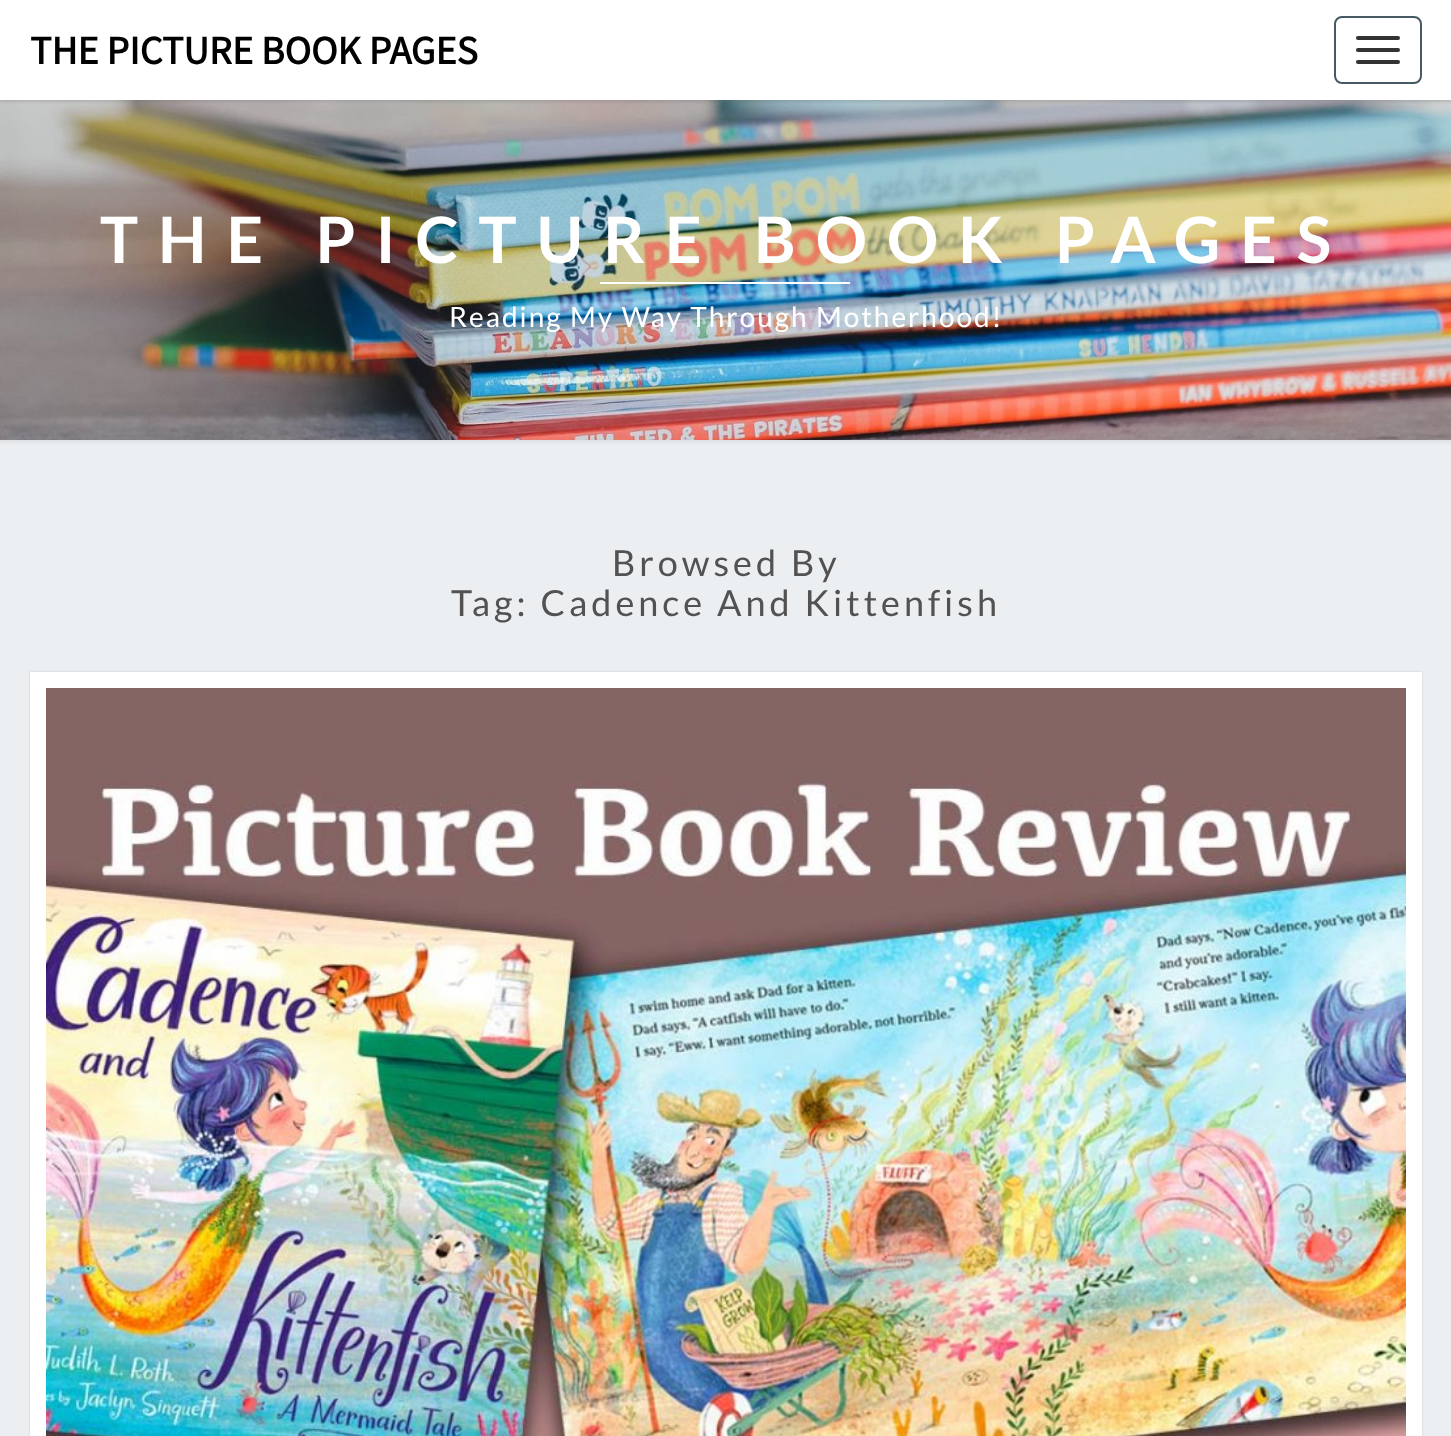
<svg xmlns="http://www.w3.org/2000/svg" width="1451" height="1436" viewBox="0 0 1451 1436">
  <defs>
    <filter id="blur1" x="-50%" y="-200%" width="200%" height="500%"><feGaussianBlur stdDeviation="2"/></filter>
    <filter id="blur2" x="-50%" y="-200%" width="200%" height="500%"><feGaussianBlur stdDeviation="1"/></filter>
  </defs>
  <rect width="100%" height="100%" fill="#eceff1"/>
  <rect x="-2" y="98" width="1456" height="344" fill="#b6b6b6" fill-opacity="0.3" filter="url(#blur1)"/>
  <image x="0" y="100" width="1451" height="340" href="img1.png"/>
  <rect x="0" y="2" width="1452" height="100" fill="#646464" fill-opacity="0.2" filter="url(#blur2)"/>
  <rect x="0" y="0" width="1451" height="100" fill="#ffffff"/>
  <text x="30" y="64" font-family="Source Sans Pro" font-size="40" font-weight="bold" fill="#000000">THE PICTURE BOOK PAGES</text>
  <rect x="1335" y="17" width="86" height="66" rx="7" fill="none" stroke="#455a64" stroke-width="2"/>
  <rect x="1356" y="36" width="44" height="4" rx="2" fill="#333333"/>
  <rect x="1356" y="48" width="44" height="4" rx="2" fill="#333333"/>
  <rect x="1356" y="60" width="44" height="4" rx="2" fill="#333333"/>
  <text x="100" y="263" font-family="Lato" font-size="64" font-weight="bold" letter-spacing="20" fill="#ffffff">THE PICTURE BOOK PAGES</text>
  <rect x="600" y="282" width="250" height="2" fill="#ffffff"/>
  <text x="449" y="327" font-family="Lato" font-size="28" letter-spacing="2" fill="#ffffff">Reading My Way Through Motherhood!</text>
  <text x="612" y="576" font-family="Lato" font-size="36" letter-spacing="4" fill="#525252">Browsed By</text>
  <text x="451" y="616" font-family="Lato" font-size="36" letter-spacing="4" fill="#525252">Tag: Cadence And Kittenfish</text>
  <rect x="30" y="672" width="1392" height="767" fill="#000000" fill-opacity="0.15" filter="url(#blur2)"/>
  <rect x="30" y="672" width="1392" height="764" fill="#ffffff"/>
  <image x="46" y="688" width="1360" height="748" href="img2.png"/>
</svg>
